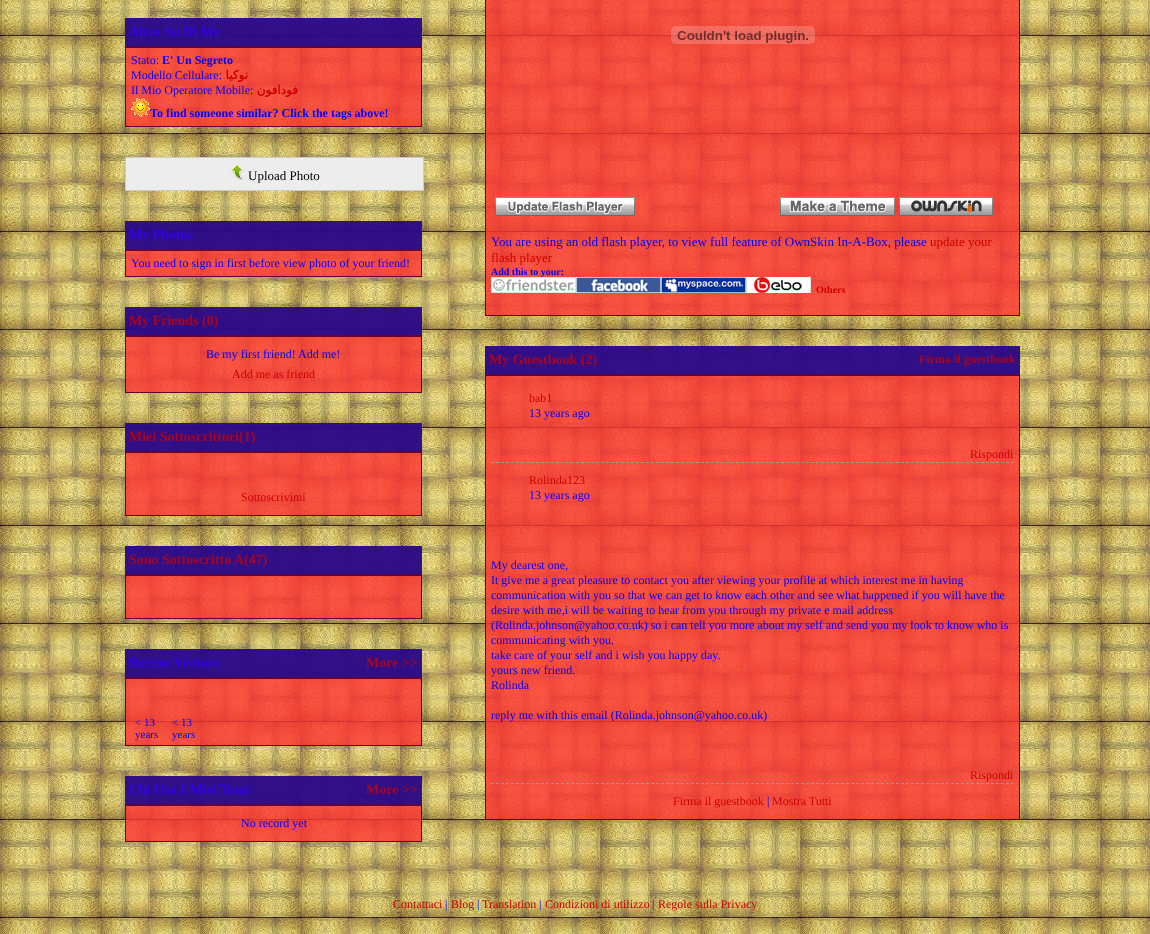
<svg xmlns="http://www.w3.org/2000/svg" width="1150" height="934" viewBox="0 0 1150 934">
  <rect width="100%" height="100%" fill="#ffffff"/>
  <image x="0" y="0" width="1150" height="934" href="img1.png"/>
  <rect x="125" y="18" width="297" height="108" fill="#ff3333" fill-opacity="0.8"/>
  <rect x="125" y="18" width="297" height="29" fill="#000099" fill-opacity="0.8"/>
  <rect x="125" y="46" width="297" height="1" fill="#660033" fill-opacity="0.8"/>
  <text x="129" y="36" font-family="Liberation Serif" font-size="14" font-weight="bold" fill="#3203e7">Altro Su Di Me</text>
  <rect x="125.5" y="47.5" width="296" height="79" fill="none" stroke="#660033"/>
  <text x="131" y="64" font-family="Liberation Serif" font-size="12" fill="#0000ff">Stato:</text>
  <text x="162" y="64" font-family="Liberation Serif" font-size="12" font-weight="bold" fill="#0000ff">E' Un Segreto</text>
  <text x="131" y="79" font-family="Liberation Serif" font-size="12" fill="#0000ff">Modello Cellulare:</text>
  <text x="248" y="79" font-family="DejaVu Sans" font-size="12" font-weight="bold" direction="rtl" fill="#cc0000">نوكيا</text>
  <text x="131" y="94" font-family="Liberation Serif" font-size="12" fill="#0000ff">Il Mio Operatore Mobile:</text>
  <text x="298" y="94" font-family="DejaVu Sans" font-size="12" font-weight="bold" direction="rtl" fill="#cc0000">فودافون</text>
  <image x="131" y="98" width="19" height="19" href="img2.png"/>
  <text x="150" y="117" font-family="Liberation Serif" font-size="12" font-weight="bold" fill="#0000ff">To find someone similar? Click the tags above!</text>
  <rect x="125.5" y="157.5" width="298" height="33" fill="#ededed" stroke="#cccccc"/>
  <image x="230" y="164" width="14" height="16" href="img3.png"/>
  <text x="248" y="180" font-family="Liberation Serif" font-size="13" fill="#000000">Upload Photo</text>
  <rect x="125" y="221" width="297" height="55" fill="#ff3333" fill-opacity="0.8"/>
  <rect x="125" y="221" width="297" height="29" fill="#000099" fill-opacity="0.8"/>
  <rect x="125" y="249" width="297" height="1" fill="#660033" fill-opacity="0.8"/>
  <text x="129" y="239" font-family="Liberation Serif" font-size="14" font-weight="bold" fill="#3203e7">My Photos</text>
  <rect x="125.5" y="250.5" width="296" height="26" fill="none" stroke="#660033"/>
  <text x="131" y="267" font-family="Liberation Serif" font-size="12" fill="#0000ff">You need to sign in first before view photo of your friend!</text>
  <rect x="125" y="307" width="297" height="85" fill="#ff3333" fill-opacity="0.8"/>
  <rect x="125" y="307" width="297" height="29" fill="#000099" fill-opacity="0.8"/>
  <rect x="125" y="335" width="297" height="1" fill="#660033" fill-opacity="0.8"/>
  <text x="129" y="325" font-family="Liberation Serif" font-size="14" font-weight="bold" fill="#ad031b">My Friends (0)</text>
  <rect x="125.5" y="336.5" width="296" height="56" fill="none" stroke="#660033"/>
  <text x="206" y="358" font-family="Liberation Serif" font-size="12" fill="#0000ff">Be my first friend! Add me!</text>
  <text x="232" y="378" font-family="Liberation Serif" font-size="12" fill="#cc0000">Add me as friend</text>
  <rect x="125" y="423" width="297" height="92" fill="#ff3333" fill-opacity="0.8"/>
  <rect x="125" y="423" width="297" height="29" fill="#000099" fill-opacity="0.8"/>
  <rect x="125" y="451" width="297" height="1" fill="#660033" fill-opacity="0.8"/>
  <text x="129" y="441" font-family="Liberation Serif" font-size="14" font-weight="bold" fill="#ad031b">Miei Sottoscrittori(1)</text>
  <rect x="125.5" y="452.5" width="296" height="63" fill="none" stroke="#660033"/>
  <text x="241" y="501" font-family="Liberation Serif" font-size="12" fill="#cc0000">Sottoscrivimi</text>
  <rect x="125" y="546" width="297" height="72" fill="#ff3333" fill-opacity="0.8"/>
  <rect x="125" y="546" width="297" height="29" fill="#000099" fill-opacity="0.8"/>
  <rect x="125" y="574" width="297" height="1" fill="#660033" fill-opacity="0.8"/>
  <text x="129" y="564" font-family="Liberation Serif" font-size="14" font-weight="bold" fill="#ad031b">Sono Sottoscritto A(47)</text>
  <rect x="125.5" y="575.5" width="296" height="43" fill="none" stroke="#660033"/>
  <rect x="125" y="649" width="297" height="96" fill="#ff3333" fill-opacity="0.8"/>
  <rect x="125" y="649" width="297" height="29" fill="#000099" fill-opacity="0.8"/>
  <rect x="125" y="677" width="297" height="1" fill="#660033" fill-opacity="0.8"/>
  <text x="129" y="667" font-family="Liberation Serif" font-size="14" font-weight="bold" fill="#3203e7">Recent Visitors</text>
  <text x="366" y="667" font-family="Liberation Serif" font-size="14" font-weight="bold" fill="#ad031b">More &gt;&gt;</text>
  <rect x="125.5" y="678.5" width="296" height="67" fill="none" stroke="#660033"/>
  <text x="135" y="726" font-family="Liberation Serif" font-size="11" fill="#0000ff">&lt; 13</text>
  <text x="135" y="738" font-family="Liberation Serif" font-size="11" fill="#0000ff">years</text>
  <text x="172" y="726" font-family="Liberation Serif" font-size="11" fill="#0000ff">&lt; 13</text>
  <text x="172" y="738" font-family="Liberation Serif" font-size="11" fill="#0000ff">years</text>
  <rect x="125" y="776" width="297" height="65" fill="#ff3333" fill-opacity="0.8"/>
  <rect x="125" y="776" width="297" height="29" fill="#000099" fill-opacity="0.8"/>
  <rect x="125" y="804" width="297" height="1" fill="#660033" fill-opacity="0.8"/>
  <text x="129" y="794" font-family="Liberation Serif" font-size="14" font-weight="bold" fill="#3203e7">Chi Usa I Miei Temi</text>
  <text x="366" y="794" font-family="Liberation Serif" font-size="14" font-weight="bold" fill="#ad031b">More &gt;&gt;</text>
  <rect x="125.5" y="805.5" width="296" height="36" fill="none" stroke="#660033"/>
  <text x="241" y="827" font-family="Liberation Serif" font-size="12" fill="#0000ff">No record yet</text>
  <rect x="485.5" y="-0.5" width="534" height="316" fill="#ff3333" fill-opacity="0.8" stroke="#660033"/>
  <image x="671" y="26" width="144" height="18" href="img4.png"/>
  <image x="495" y="197" width="140" height="19" href="img5.png"/>
  <image x="780" y="197" width="115" height="19" href="img6.png"/>
  <image x="899" y="197" width="94" height="19" href="img7.png"/>
  <text x="491" y="246" font-family="Liberation Serif" font-size="13" fill="#0000ff">You are using an old flash player, to view full feature of OwnSkin In-A-Box, please</text>
  <text x="930" y="246" font-family="Liberation Serif" font-size="13" fill="#cc0000">update your</text>
  <text x="491" y="262" font-family="Liberation Serif" font-size="13" fill="#cc0000">flash player</text>
  <text x="491" y="275" font-family="Liberation Serif" font-size="10" font-weight="bold" fill="#0000ff">Add this to your:</text>
  <image x="491" y="277" width="85" height="16" href="img8.png"/>
  <image x="576" y="277" width="85" height="16" href="img9.png"/>
  <image x="661" y="277" width="85" height="16" href="img10.png"/>
  <image x="746" y="277" width="65" height="16" href="img11.png"/>
  <text x="816" y="293" font-family="Liberation Serif" font-size="10" font-weight="bold" fill="#cc0000">Others</text>
  <rect x="485" y="346" width="535" height="473" fill="#ff3333" fill-opacity="0.8"/>
  <rect x="485" y="346" width="535" height="29" fill="#000099" fill-opacity="0.8"/>
  <rect x="485" y="374" width="535" height="1" fill="#660033" fill-opacity="0.8"/>
  <text x="489" y="364" font-family="Liberation Serif" font-size="14" font-weight="bold" fill="#ad031b">My Guestbook (2)</text>
  <text x="919" y="363" font-family="Liberation Serif" font-size="12" font-weight="bold" fill="#ad031b">Firma il guestbook</text>
  <rect x="485.5" y="375.5" width="534" height="444" fill="none" stroke="#660033"/>
  <path d="M491 462.5H1014" fill="none" stroke="#999999" stroke-dasharray="3 2"/>
  <text x="529" y="402" font-family="Liberation Serif" font-size="12" fill="#cc0000">bab1</text>
  <text x="529" y="417" font-family="Liberation Serif" font-size="12" fill="#0000ff">13 years ago</text>
  <text x="970" y="458" font-family="Liberation Serif" font-size="12" fill="#cc0000">Rispondi</text>
  <path d="M491 783.5H1014" fill="none" stroke="#999999" stroke-dasharray="3 2"/>
  <text x="529" y="484" font-family="Liberation Serif" font-size="12" fill="#cc0000">Rolinda123</text>
  <text x="529" y="499" font-family="Liberation Serif" font-size="12" fill="#0000ff">13 years ago</text>
  <text x="491" y="569" font-family="Liberation Serif" font-size="12" fill="#0000ff">My dearest one,</text>
  <text x="491" y="584" font-family="Liberation Serif" font-size="12" fill="#0000ff">It give me a great pleasure to contact you after viewing your profile at which interest me in having</text>
  <text x="491" y="599" font-family="Liberation Serif" font-size="12" fill="#0000ff">communication with you so that we can get to know each other and see what happened if you will have the</text>
  <text x="491" y="614" font-family="Liberation Serif" font-size="12" fill="#0000ff">desire with me,i will be waiting to hear from you through my private e mail address</text>
  <text x="491" y="629" font-family="Liberation Serif" font-size="12" fill="#0000ff">(Rolinda.johnson@yahoo.co.uk) so i can tell you more about my self and send you my look to know who is</text>
  <text x="491" y="644" font-family="Liberation Serif" font-size="12" fill="#0000ff">communicating with you.</text>
  <text x="491" y="659" font-family="Liberation Serif" font-size="12" fill="#0000ff">take care of your self and i wish you happy day.</text>
  <text x="491" y="674" font-family="Liberation Serif" font-size="12" fill="#0000ff">yours new friend.</text>
  <text x="491" y="689" font-family="Liberation Serif" font-size="12" fill="#0000ff">Rolinda</text>
  <text x="491" y="719" font-family="Liberation Serif" font-size="12" fill="#0000ff">reply me with this email (Rolinda.johnson@yahoo.co.uk)</text>
  <text x="970" y="779" font-family="Liberation Serif" font-size="12" fill="#cc0000">Rispondi</text>
  <text x="673" y="805" font-family="Liberation Serif" font-size="12" fill="#cc0000">Firma il guestbook</text>
  <text x="767" y="805" font-family="Liberation Serif" font-size="12" fill="#0000ff">|</text>
  <text x="772" y="805" font-family="Liberation Serif" font-size="12" fill="#cc0000">Mostra Tutti</text>
  <text x="393" y="908" font-family="Liberation Serif" font-size="12" fill="#cc0000">Contattaci</text>
  <text x="445" y="908" font-family="Liberation Serif" font-size="12" fill="#0000ff">|</text>
  <text x="451" y="908" font-family="Liberation Serif" font-size="12" fill="#cc0000">Blog</text>
  <text x="477" y="908" font-family="Liberation Serif" font-size="12" fill="#0000ff">|</text>
  <text x="482" y="908" font-family="Liberation Serif" font-size="12" fill="#cc0000">Translation</text>
  <text x="539" y="908" font-family="Liberation Serif" font-size="12" fill="#0000ff">|</text>
  <text x="545" y="908" font-family="Liberation Serif" font-size="12" fill="#cc0000">Condizioni di utilizzo</text>
  <text x="652" y="908" font-family="Liberation Serif" font-size="12" fill="#0000ff">|</text>
  <text x="658" y="908" font-family="Liberation Serif" font-size="12" fill="#cc0000">Regole sulla Privacy</text>
</svg>
